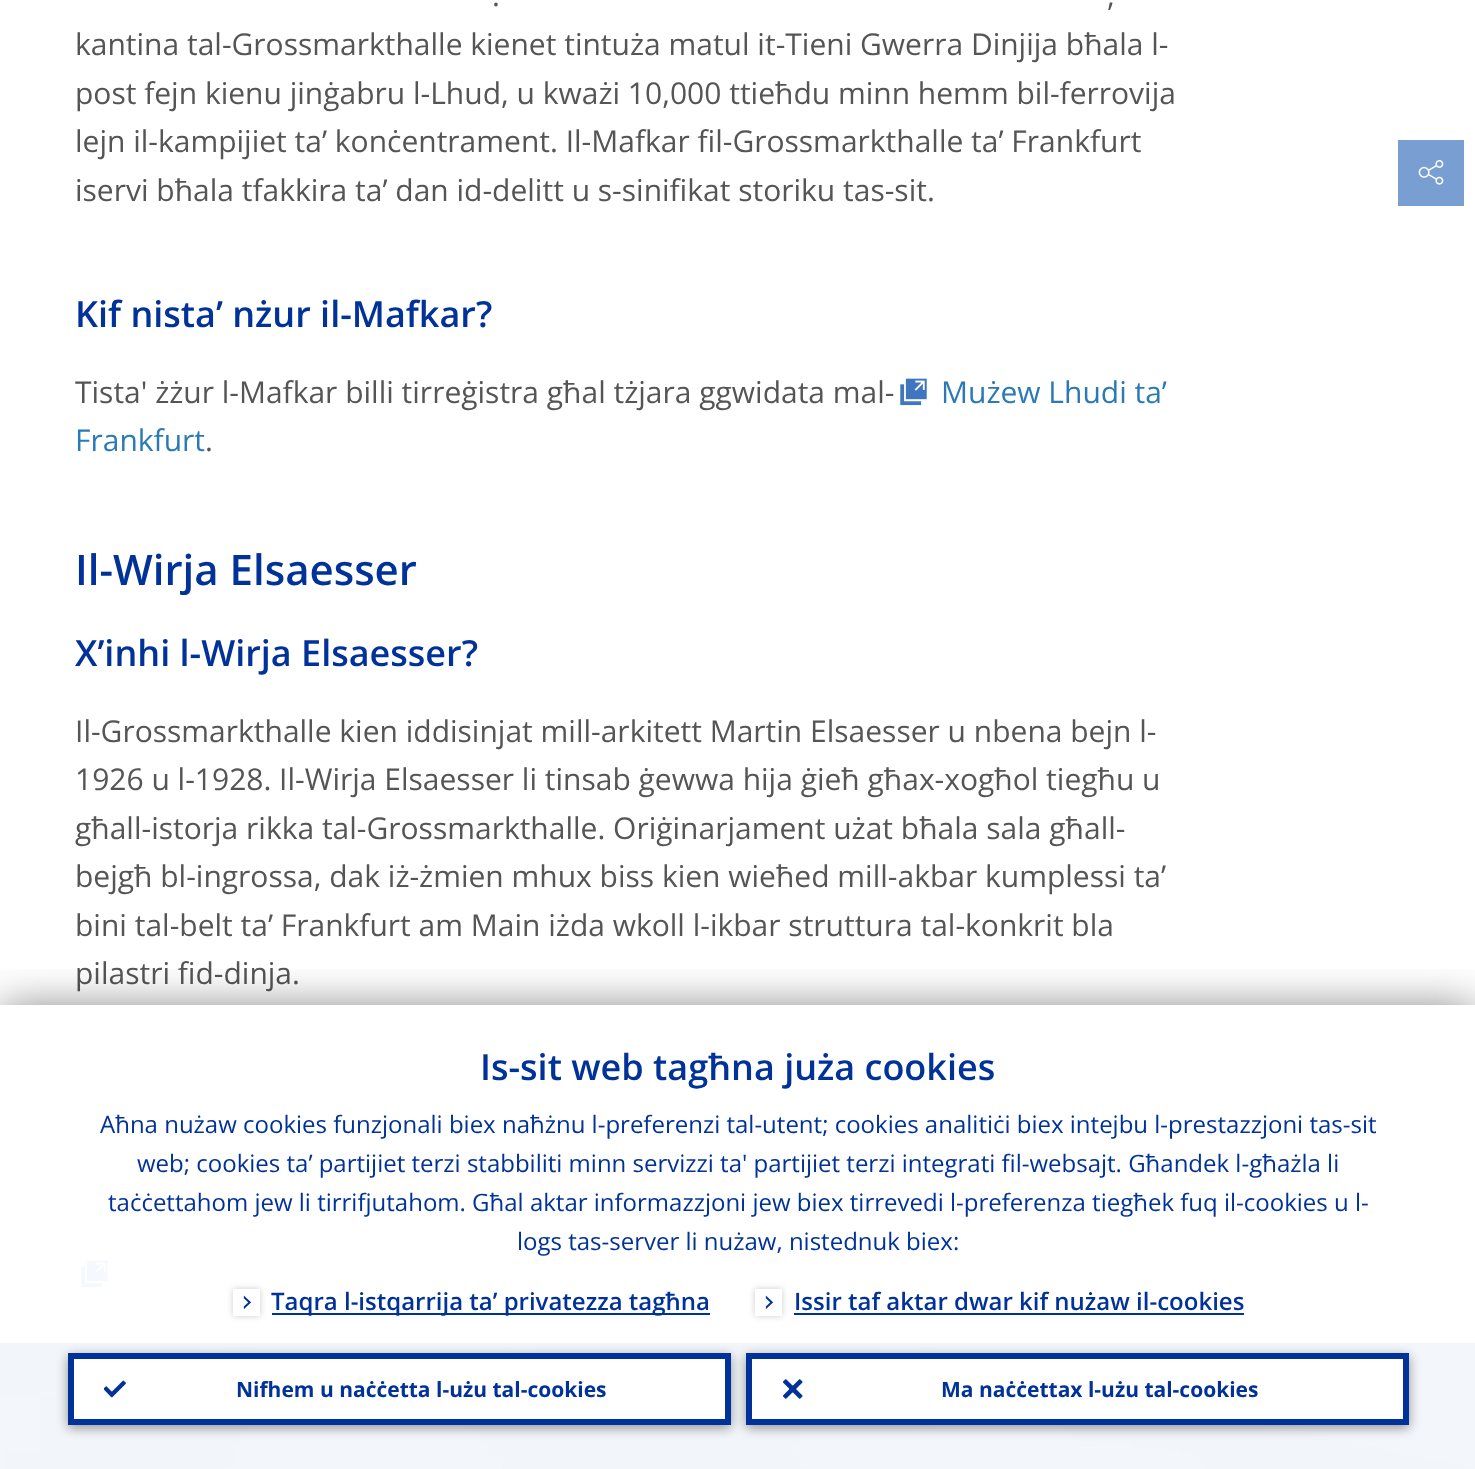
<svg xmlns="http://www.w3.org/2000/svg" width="1475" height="1469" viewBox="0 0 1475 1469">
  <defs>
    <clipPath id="clip1"><rect x="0" y="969" width="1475" height="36"/></clipPath>
    <filter id="blur1" x="-50%" y="-200%" width="200%" height="500%"><feGaussianBlur stdDeviation="22.5"/></filter>
    <filter id="blur2" x="-50%" y="-200%" width="200%" height="500%"><feGaussianBlur stdDeviation="3"/></filter>
    <filter id="blur3" x="-50%" y="-200%" width="200%" height="500%"><feGaussianBlur stdDeviation="6"/></filter>
  </defs>
  <rect width="100%" height="100%" fill="#ffffff"/>
  <text x="492" y="6" font-family="Open Sans" font-size="30" fill="#555555">.</text>
  <text x="1107" y="6" font-family="Open Sans" font-size="30" fill="#555555">,</text>
  <text x="75" y="55" font-family="Open Sans" font-size="30" fill="#555555">kantina tal-Grossmarkthalle kienet tintuża matul it-Tieni Gwerra Dinjija bħala l-</text>
  <text x="75" y="104" font-family="Open Sans" font-size="30" fill="#555555">post fejn kienu jinġabru l-Lhud, u kważi 10,000 ttieħdu minn hemm bil-ferrovija</text>
  <text x="75" y="152" font-family="Open Sans" font-size="30" fill="#555555">lejn il-kampijiet ta’ konċentrament. Il-Mafkar fil-Grossmarkthalle ta’ Frankfurt</text>
  <text x="75" y="201" font-family="Open Sans" font-size="30" fill="#555555">iservi bħala tfakkira ta’ dan id-delitt u s-sinifikat storiku tas-sit.</text>
  <text x="75" y="327" font-family="Open Sans" font-size="36" font-weight="600" fill="#003299">Kif nista’ nżur il-Mafkar?</text>
  <text x="75" y="403" font-family="Open Sans" font-size="30" fill="#555555">Tista' żżur l-Mafkar billi tirreġistra għal tżjara ggwidata mal-</text>
  <image x="900" y="378" width="27" height="28" href="img1.png"/>
  <text x="941" y="403" font-family="Open Sans" font-size="30" fill="#2b7ab6">Mużew Lhudi ta’</text>
  <text x="75" y="451" font-family="Open Sans" font-size="30" fill="#2b7ab6">Frankfurt</text>
  <text x="205" y="451" font-family="Open Sans" font-size="30" fill="#555555">.</text>
  <text x="75" y="585" font-family="Open Sans" font-size="42" font-weight="600" fill="#003299">Il-Wirja Elsaesser</text>
  <text x="75" y="666" font-family="Open Sans" font-size="36" font-weight="600" fill="#003299">X’inhi l-Wirja Elsaesser?</text>
  <text x="75" y="742" font-family="Open Sans" font-size="30" fill="#555555">Il-Grossmarkthalle kien iddisinjat mill-arkitett Martin Elsaesser u nbena bejn l-</text>
  <text x="75" y="790" font-family="Open Sans" font-size="30" fill="#555555">1926 u l-1928. Il-Wirja Elsaesser li tinsab ġewwa hija ġieħ għax-xogħol tiegħu u</text>
  <text x="75" y="839" font-family="Open Sans" font-size="30" fill="#555555">għall-istorja rikka tal-Grossmarkthalle. Oriġinarjament użat bħala sala għall-</text>
  <text x="75" y="887" font-family="Open Sans" font-size="30" fill="#555555">bejgħ bl-ingrossa, dak iż-żmien mhux biss kien wieħed mill-akbar kumplessi ta’</text>
  <text x="75" y="936" font-family="Open Sans" font-size="30" fill="#555555">bini tal-belt ta’ Frankfurt am Main iżda wkoll l-ikbar struttura tal-konkrit bla</text>
  <text x="75" y="984" font-family="Open Sans" font-size="30" fill="#555555">pilastri fid-dinja.</text>
  <image x="81" y="1260" width="27" height="28" href="img2.png"/>
  <rect x="1398" y="140" width="66" height="66" fill="#799fd2"/>
  <image x="1418" y="160" width="26" height="25" href="img3.png"/>
  <rect x="0" y="1343" width="1475" height="126" fill="#f2f5fa"/>
  <image x="0" y="1342" width="1475" height="127" href="img7.png"/>
  <g clip-path="url(#clip1)">
    <rect x="0" y="1008" width="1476" height="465" fill="#000000" fill-opacity="0.5" filter="url(#blur1)"/>
  </g>
  <text x="480" y="1080" font-family="Open Sans" font-size="36" font-weight="600" fill="#003299">Is-sit web tagħna juża cookies</text>
  <text x="100" y="1133" font-family="Open Sans" font-size="24" fill="#003299">Aħna nużaw cookies funzjonali biex naħżnu l-preferenzi tal-utent; cookies analitiċi biex intejbu l-prestazzjoni tas-sit</text>
  <text x="137" y="1172" font-family="Open Sans" font-size="24" fill="#003299">web; cookies ta’ partijiet terzi stabbiliti minn servizzi ta' partijiet terzi integrati fil-websajt. Għandek l-għażla li</text>
  <text x="108" y="1211" font-family="Open Sans" font-size="24" fill="#003299">taċċettahom jew li tirrifjutahom. Għal aktar informazzjoni jew biex tirrevedi l-preferenza tiegħek fuq il-cookies u l-</text>
  <text x="517" y="1250" font-family="Open Sans" font-size="24" fill="#003299">logs tas-server li nużaw, nistednuk biex:</text>
  <rect x="233" y="1289" width="27" height="27" fill="#000000" fill-opacity="0.2" filter="url(#blur2)"/>
  <rect x="233" y="1289" width="27" height="27" fill="#ffffff"/>
  <image x="243" y="1295" width="8" height="14" href="img4.png"/>
  <rect x="272" y="1313" width="438" height="2" fill="#003299"/>
  <text x="271" y="1310" font-family="Open Sans" font-size="24" font-weight="600" fill="#003299">Taqra l-istqarrija ta’ privatezza tagħna</text>
  <rect x="755" y="1289" width="27" height="27" fill="#000000" fill-opacity="0.2" filter="url(#blur2)"/>
  <rect x="755" y="1289" width="27" height="27" fill="#ffffff"/>
  <image x="765" y="1295" width="8" height="14" href="img4.png"/>
  <text x="794" y="1310" font-family="Open Sans" font-size="24" font-weight="600" fill="#003299">Issir taf aktar dwar kif nużaw il-cookies</text>
  <rect x="794" y="1313" width="450" height="2" fill="#003299"/>
  <rect x="68" y="1356" width="663" height="72" fill="#000000" fill-opacity="0.4" filter="url(#blur3)"/>
  <rect x="71" y="1356" width="657" height="66" fill="#ffffff" stroke="#003299" stroke-width="6"/>
  <image x="104" y="1380" width="22" height="18" href="img5.png"/>
  <text x="236" y="1397" font-family="Open Sans" font-size="21" font-weight="bold" fill="#003299">Nifhem u naċċetta l-użu tal-cookies</text>
  <rect x="746" y="1356" width="663" height="72" fill="#000000" fill-opacity="0.4" filter="url(#blur3)"/>
  <rect x="749" y="1356" width="657" height="66" fill="#ffffff" stroke="#003299" stroke-width="6"/>
  <image x="782" y="1379" width="21" height="20" href="img6.png"/>
  <text x="941" y="1397" font-family="Open Sans" font-size="21" font-weight="bold" fill="#003299">Ma naċċettax l-użu tal-cookies</text>
</svg>
